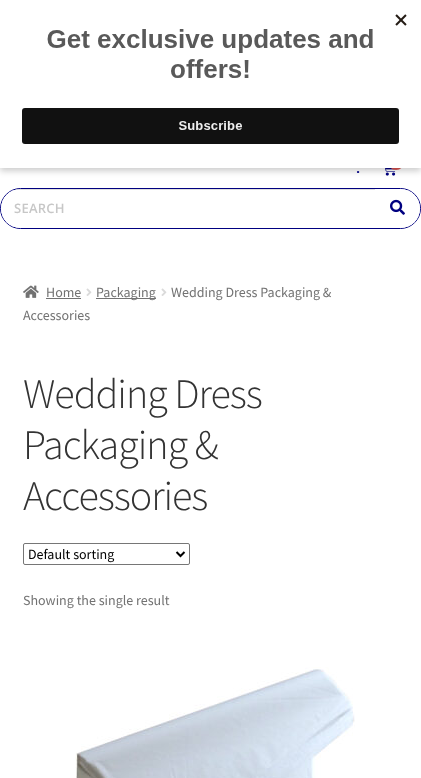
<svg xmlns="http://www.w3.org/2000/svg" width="421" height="778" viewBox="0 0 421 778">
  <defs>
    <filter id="blur1" x="-50%" y="-200%" width="200%" height="500%"><feGaussianBlur stdDeviation="3"/></filter>
    <clipPath id="clip1"><rect x="1" y="189" width="419" height="39" rx="19.5"/></clipPath>
  </defs>
  <rect width="100%" height="100%" fill="#ffffff"/>
  <image x="385" y="168" width="11" height="8" href="img2.png"/>
  <circle cx="396" cy="162" r="8" fill="#d9534f"/>
  <rect x="0" y="3" width="421" height="168" fill="#000000" fill-opacity="0.2" filter="url(#blur1)"/>
  <rect x="0" y="0" width="421" height="168" fill="#ffffff"/>
  <image x="22" y="14" width="385" height="130" href="img1.png"/>
  <text x="356" y="173" font-family="Roboto" font-size="15" font-weight="600" fill="#000080">.</text>
  <rect x="0.5" y="188.5" width="420" height="40" rx="20" fill="none" stroke="#000080"/>
  <path d="M20.5 189H375V228H20.5C9.5 228 1 219.5 1 208.5C1 197.5 9.5 189 20.5 189Z" fill="#ffffff"/>
  <g clip-path="url(#clip1)">
    <rect x="15" y="189" width="360" height="1" fill="#000000" fill-opacity="0.12"/>
  </g>
  <text x="14" y="213" font-family="Open Sans" font-size="13" font-weight="600" letter-spacing="0.25" fill="#c7c7c7">SEARCH</text>
  <path d="M375 189H400.5C411.5 189 420 197.5 420 208.5C420 219.5 411.5 228 400.5 228H375Z" fill="#ffffff"/>
  <image x="390" y="199" width="15" height="16" href="img3.png"/>
  <image x="23" y="285" width="16" height="13" href="img4.png"/>
  <text x="46" y="297" font-family="Source Sans Pro" font-size="14" fill="#727272">Home</text>
  <rect x="46" y="298" width="35" height="1" fill="#727272"/>
  <image x="86" y="288" width="6" height="8" href="img5.png"/>
  <rect x="96" y="298" width="60" height="1" fill="#727272"/>
  <text x="96" y="297" font-family="Source Sans Pro" font-size="14" fill="#727272">Packaging</text>
  <image x="161" y="288" width="6" height="8" href="img5.png"/>
  <text x="171" y="297" font-family="Source Sans Pro" font-size="14" fill="#727272">Wedding Dress Packaging &amp;</text>
  <text x="23" y="320" font-family="Source Sans Pro" font-size="14" fill="#727272">Accessories</text>
  <text x="23" y="408" font-family="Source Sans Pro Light" font-size="42" font-weight="300" letter-spacing="-1" fill="#333333">Wedding Dress</text>
  <text x="23" y="459" font-family="Source Sans Pro Light" font-size="42" font-weight="300" letter-spacing="-1" fill="#333333">Packaging &amp;</text>
  <text x="23" y="510" font-family="Source Sans Pro Light" font-size="42" font-weight="300" letter-spacing="-1" fill="#333333">Accessories</text>
  <rect x="23.5" y="543.5" width="166" height="21" rx="1.5" fill="none" stroke="#767676"/>
  <path d="M176.5 552L180.5 556L184.5 552" fill="none" stroke="#000000" stroke-width="2"/>
  <text x="28" y="559" font-family="Source Sans Pro" font-size="14" fill="#000000">Default sorting</text>
  <text x="23" y="605" font-family="Source Sans Pro" font-size="14" fill="#727272">Showing the single result</text>
  <image x="75" y="667" width="280" height="111" href="img6.png"/>
</svg>
